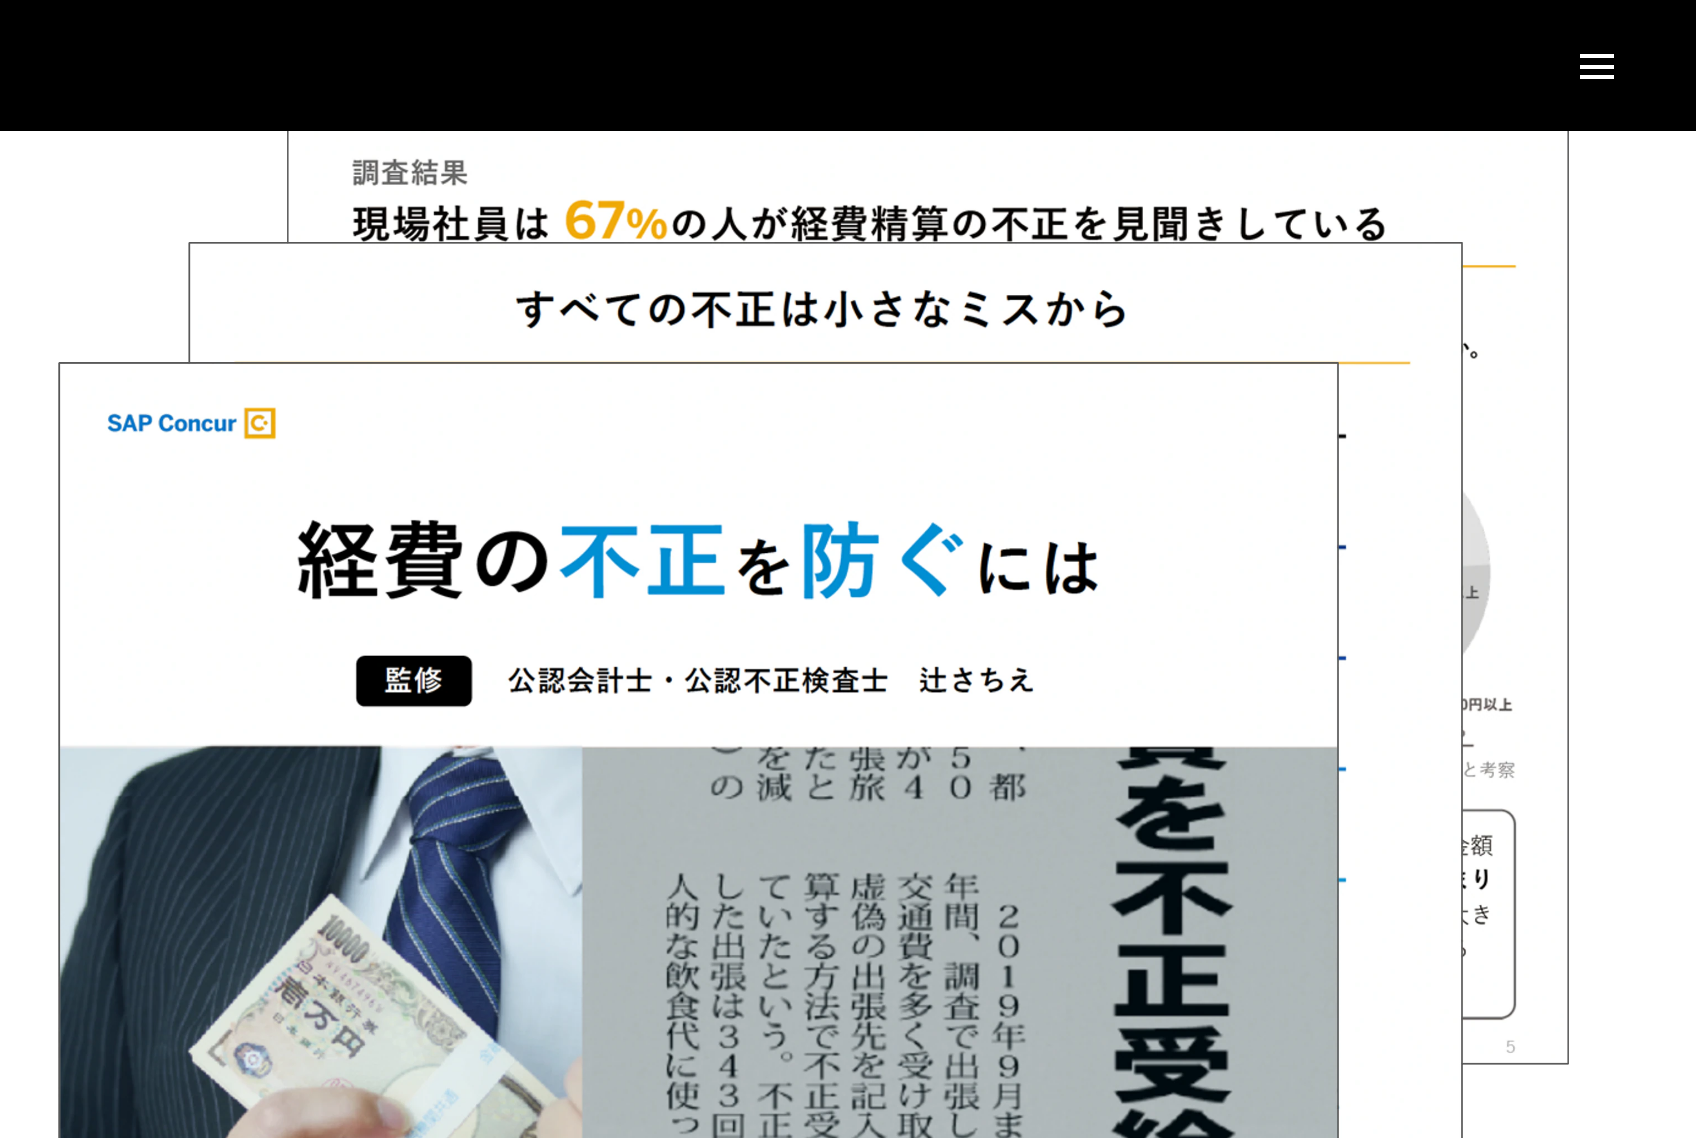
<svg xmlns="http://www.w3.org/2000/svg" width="1696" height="1138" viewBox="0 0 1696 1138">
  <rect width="100%" height="100%" fill="#ffffff"/>
  <rect x="0" y="0" width="1696" height="131" fill="#000000"/>
  <rect x="1580" y="65" width="34" height="4" fill="#ffffff"/>
  <rect x="1580" y="54" width="34" height="4" fill="#ffffff"/>
  <rect x="1580" y="75" width="34" height="4" fill="#ffffff"/>
  <image x="58" y="131" width="1511" height="1007" href="img1.png"/>
</svg>
